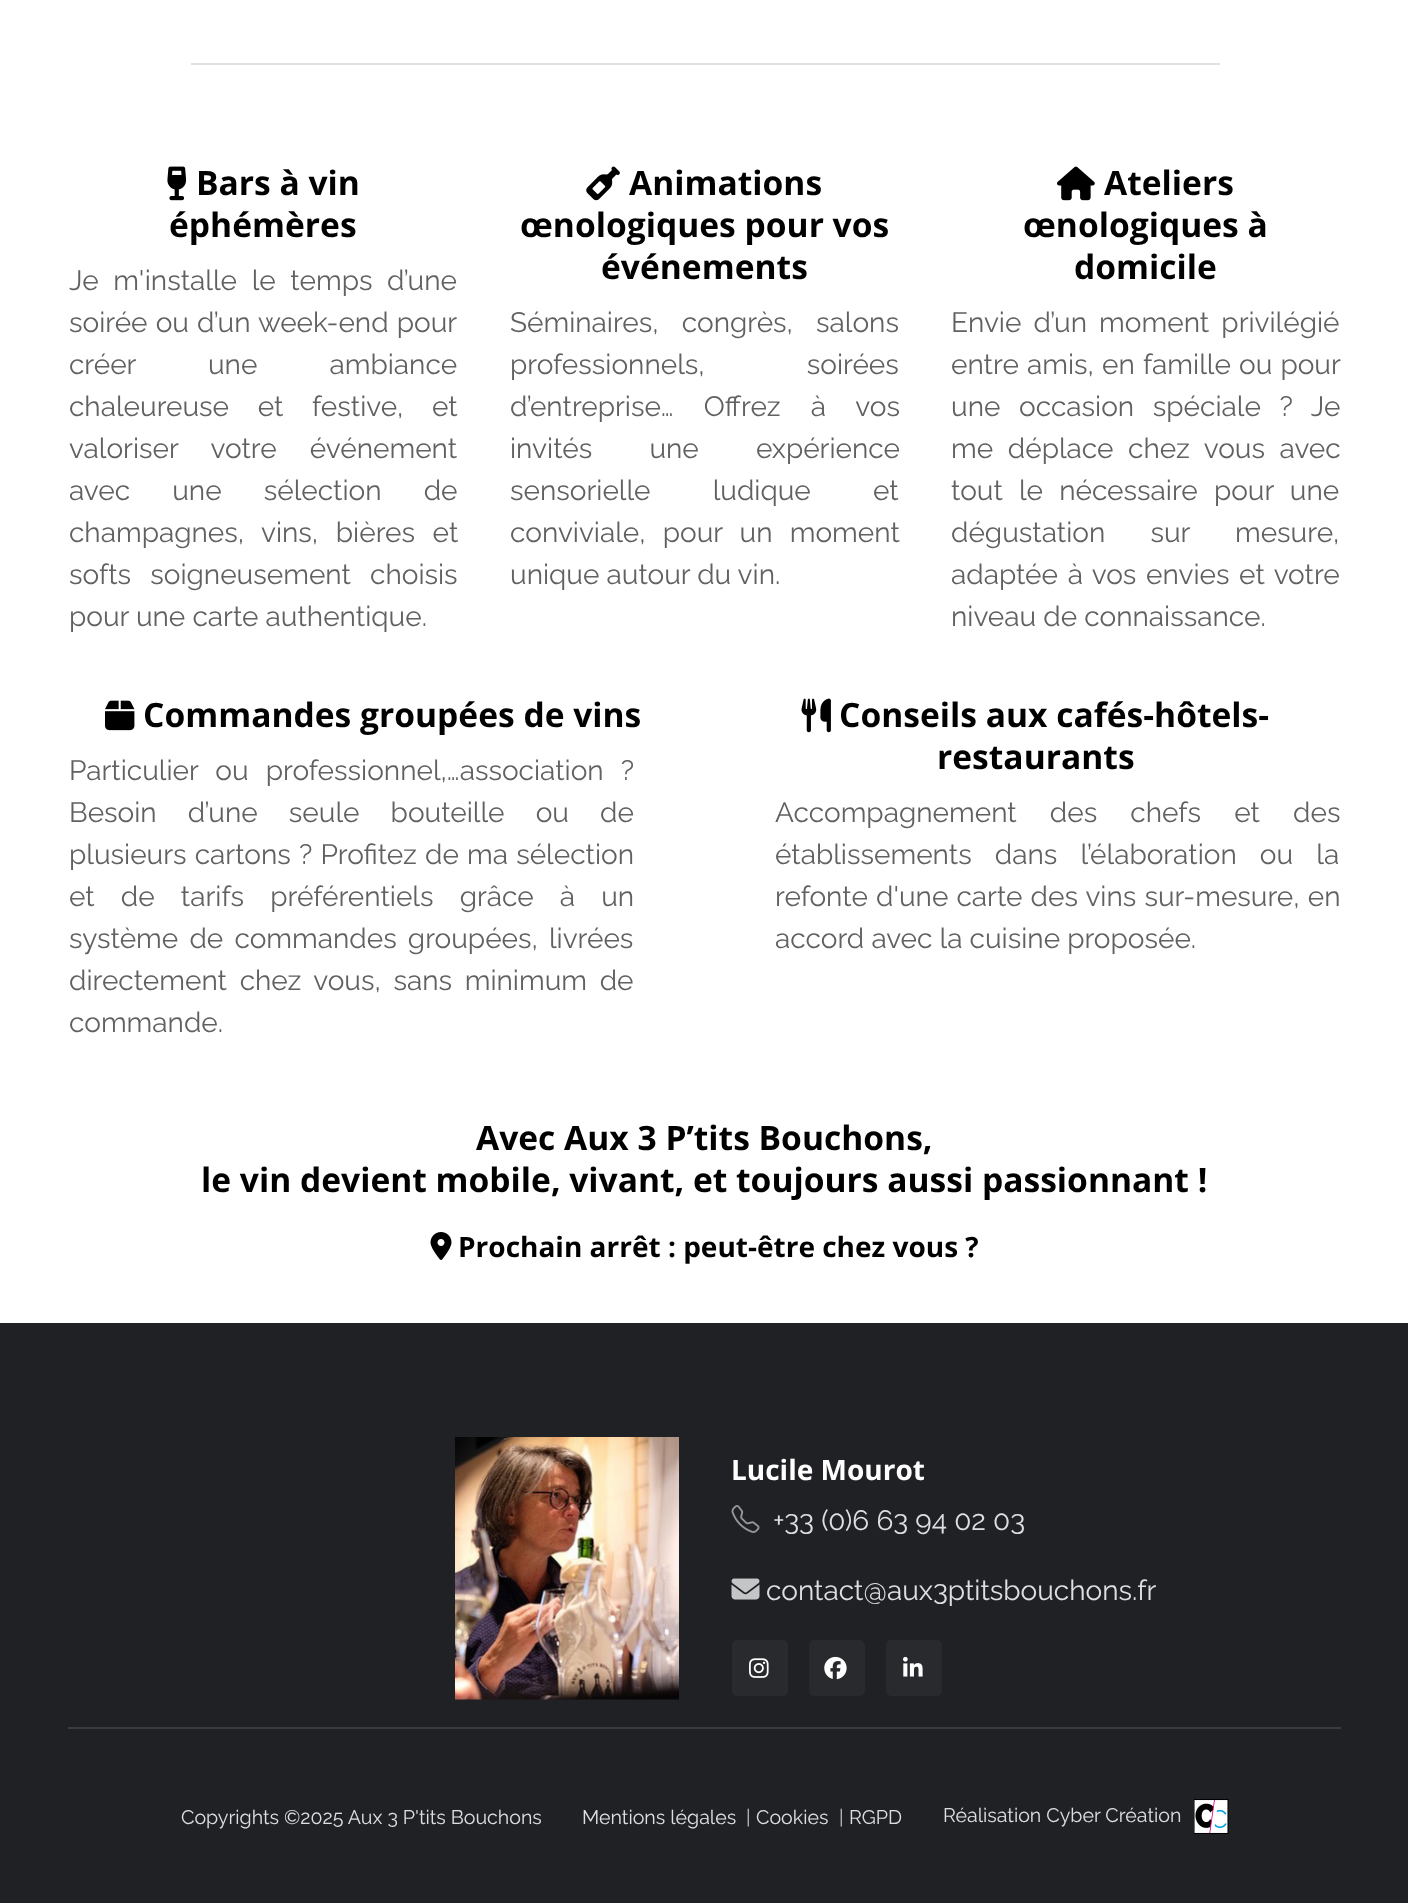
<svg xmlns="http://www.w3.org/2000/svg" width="1408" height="1903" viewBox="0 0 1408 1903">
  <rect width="100%" height="100%" fill="#ffffff"/>
  <rect x="191" y="63" width="1029" height="2" fill="#e1e1e2"/>
  <image x="167" y="166" width="20" height="35" href="img1.png"/>
  <text x="196" y="195" font-family="Open Sans" font-size="33.6" font-weight="bold" fill="#000000">Bars à vin</text>
  <text x="169" y="237" font-family="Open Sans" font-size="33.6" font-weight="bold" fill="#000000">éphémères</text>
  <text x="69" y="290" word-spacing="7.5" font-family="Raleway" font-size="28" fill="#606261">Je m'installe le temps d’une</text>
  <text x="69" y="332" word-spacing="1" font-family="Raleway" font-size="28" fill="#606261">soirée ou d’un week-end pour</text>
  <text x="69" y="374" word-spacing="65" font-family="Raleway" font-size="28" fill="#606261">créer une ambiance</text>
  <text x="69" y="416" word-spacing="21.5" font-family="Raleway" font-size="28" fill="#606261">chaleureuse et festive, et</text>
  <text x="69" y="458" word-spacing="26" font-family="Raleway" font-size="28" fill="#606261">valoriser votre événement</text>
  <text x="69" y="500" word-spacing="35" font-family="Raleway" font-size="28" fill="#606261">avec une sélection de</text>
  <text x="69" y="542" word-spacing="10.5" font-family="Raleway" font-size="28" fill="#606261">champagnes, vins, bières et</text>
  <text x="69" y="584" word-spacing="12" font-family="Raleway" font-size="28" fill="#606261">softs soigneusement choisis</text>
  <text x="69" y="626" font-family="Raleway" font-size="28" fill="#606261">pour une carte authentique.</text>
  <image x="586" y="166" width="34" height="35" href="img2.png"/>
  <text x="629" y="195" font-family="Open Sans" font-size="33.6" font-weight="bold" fill="#000000">Animations</text>
  <text x="520" y="237" font-family="Open Sans" font-size="33.6" font-weight="bold" fill="#000000">œnologiques pour vos</text>
  <text x="601" y="279" font-family="Open Sans" font-size="33.6" font-weight="bold" fill="#000000">événements</text>
  <text x="510" y="332" word-spacing="16" font-family="Raleway" font-size="28" fill="#606261">Séminaires, congrès, salons</text>
  <text x="510" y="374" word-spacing="95" font-family="Raleway" font-size="28" fill="#606261">professionnels, soirées</text>
  <text x="510" y="416" word-spacing="23" font-family="Raleway" font-size="28" fill="#606261">d’entreprise… Offrez à vos</text>
  <text x="510" y="458" word-spacing="50" font-family="Raleway" font-size="28" fill="#606261">invités une expérience</text>
  <text x="510" y="500" word-spacing="55" font-family="Raleway" font-size="28" fill="#606261">sensorielle ludique et</text>
  <text x="510" y="542" word-spacing="10" font-family="Raleway" font-size="28" fill="#606261">conviviale, pour un moment</text>
  <text x="510" y="584" font-family="Raleway" font-size="28" fill="#606261">unique autour du vin.</text>
  <image x="1057" y="166" width="38" height="35" href="img3.png"/>
  <text x="1104" y="195" font-family="Open Sans" font-size="33.6" font-weight="bold" fill="#000000">Ateliers</text>
  <text x="1023" y="237" font-family="Open Sans" font-size="33.6" font-weight="bold" fill="#000000">œnologiques à</text>
  <text x="1074" y="279" font-family="Open Sans" font-size="33.6" font-weight="bold" fill="#000000">domicile</text>
  <text x="951" y="332" word-spacing="5" font-family="Raleway" font-size="28" fill="#606261">Envie d’un moment privilégié</text>
  <text x="951" y="374" word-spacing="1" font-family="Raleway" font-size="28" fill="#606261">entre amis, en famille ou pour</text>
  <text x="951" y="416" word-spacing="11.5" font-family="Raleway" font-size="28" fill="#606261">une occasion spéciale ? Je</text>
  <text x="951" y="458" word-spacing="7.5" font-family="Raleway" font-size="28" fill="#606261">me déplace chez vous avec</text>
  <text x="951" y="500" word-spacing="9" font-family="Raleway" font-size="28" fill="#606261">tout le nécessaire pour une</text>
  <text x="951" y="542" word-spacing="38" font-family="Raleway" font-size="28" fill="#606261">dégustation sur mesure,</text>
  <text x="951" y="584" word-spacing="2.5" font-family="Raleway" font-size="28" fill="#606261">adaptée à vos envies et votre</text>
  <text x="951" y="626" font-family="Raleway" font-size="28" fill="#606261">niveau de connaissance.</text>
  <image x="105" y="700" width="30" height="31" href="img4.png"/>
  <text x="143" y="727" font-family="Open Sans" font-size="33.6" font-weight="bold" fill="#000000">Commandes groupées de vins</text>
  <text x="69" y="780" word-spacing="10" font-family="Raleway" font-size="28" fill="#606261">Particulier ou professionnel,…association ?</text>
  <text x="69" y="822" word-spacing="24" font-family="Raleway" font-size="28" fill="#606261">Besoin d’une seule bouteille ou de</text>
  <text x="69" y="864" word-spacing="1" font-family="Raleway" font-size="28" fill="#606261">plusieurs cartons ? Profitez de ma sélection</text>
  <text x="69" y="906" word-spacing="19" font-family="Raleway" font-size="28" fill="#606261">et de tarifs préférentiels grâce à un</text>
  <text x="69" y="948" word-spacing="4" font-family="Raleway" font-size="28" fill="#606261">système de commandes groupées, livrées</text>
  <text x="69" y="990" word-spacing="5.5" font-family="Raleway" font-size="28" fill="#606261">directement chez vous, sans minimum de</text>
  <text x="69" y="1032" font-family="Raleway" font-size="28" fill="#606261">commande.</text>
  <image x="801" y="698" width="30" height="35" href="img5.png"/>
  <text x="839" y="727" font-family="Open Sans" font-size="33.6" font-weight="bold" fill="#000000">Conseils aux cafés-hôtels-</text>
  <text x="937" y="769" font-family="Open Sans" font-size="33.6" font-weight="bold" fill="#000000">restaurants</text>
  <text x="775" y="822" word-spacing="26" font-family="Raleway" font-size="28" fill="#606261">Accompagnement des chefs et des</text>
  <text x="775" y="864" word-spacing="16" font-family="Raleway" font-size="28" fill="#606261">établissements dans l’élaboration ou la</text>
  <text x="775" y="906" word-spacing="1" font-family="Raleway" font-size="28" fill="#606261">refonte d'une carte des vins sur-mesure, en</text>
  <text x="775" y="948" font-family="Raleway" font-size="28" fill="#606261">accord avec la cuisine proposée.</text>
  <text x="476" y="1150" font-family="Open Sans" font-size="33.6" font-weight="bold" fill="#000000">Avec Aux 3 P’tits Bouchons,</text>
  <text x="201" y="1192" font-family="Open Sans" font-size="33.6" font-weight="bold" fill="#000000">le vin devient mobile, vivant, et toujours aussi passionnant !</text>
  <image x="430" y="1232" width="22" height="28" href="img6.png"/>
  <text x="458" y="1257" font-family="Open Sans" font-size="28" font-weight="bold" fill="#000000">Prochain arrêt : peut-être chez vous ?</text>
  <rect x="0" y="1323" width="1408" height="580" fill="#202124"/>
  <image x="455" y="1437" width="224" height="263" href="img7.png"/>
  <text x="731" y="1480" font-family="Open Sans" font-size="28" font-weight="bold" fill="#ffffff">Lucile Mourot</text>
  <image x="731" y="1505" width="29" height="28" href="img8.png"/>
  <text x="773" y="1530" font-family="Raleway" font-size="28" fill="#dce0e5">+33 (0)6 63 94 02 03</text>
  <image x="731" y="1578" width="29" height="22" href="img9.png"/>
  <text x="766" y="1600" font-family="Raleway" font-size="28" fill="#dce0e5">contact@aux3ptitsbouchons.fr</text>
  <rect x="732" y="1640" width="56" height="56" rx="5" fill="#292a2d"/>
  <image x="749" y="1658" width="20" height="20" href="img10.png"/>
  <rect x="809" y="1640" width="56" height="56" rx="5" fill="#292a2d"/>
  <image x="824" y="1656" width="23" height="24" href="img11.png"/>
  <rect x="886" y="1640" width="56" height="56" rx="5" fill="#292a2d"/>
  <image x="903" y="1656" width="20" height="21" href="img12.png"/>
  <rect x="68" y="1727" width="1273" height="2" fill="#393b3e"/>
  <text x="181" y="1824" font-family="Raleway" font-size="19.6" fill="#dce0e5">Copyrights ©2025 Aux 3 P'tits Bouchons</text>
  <text x="582" y="1824" font-family="Raleway" font-size="19.6" fill="#dce0e5">Mentions légales</text>
  <text x="746" y="1824" font-family="Raleway" font-size="19.6" fill="#c4c5c7">|</text>
  <text x="756" y="1824" font-family="Raleway" font-size="19.6" fill="#dce0e5">Cookies</text>
  <text x="839" y="1824" font-family="Raleway" font-size="19.6" fill="#c4c5c7">|</text>
  <text x="849" y="1824" font-family="Raleway" font-size="19.6" fill="#dce0e5">RGPD</text>
  <text x="943" y="1822" font-family="Raleway" font-size="19.6" fill="#dce0e5">Réalisation Cyber Création</text>
  <image x="1194" y="1799" width="35" height="35" href="img13.png"/>
</svg>
